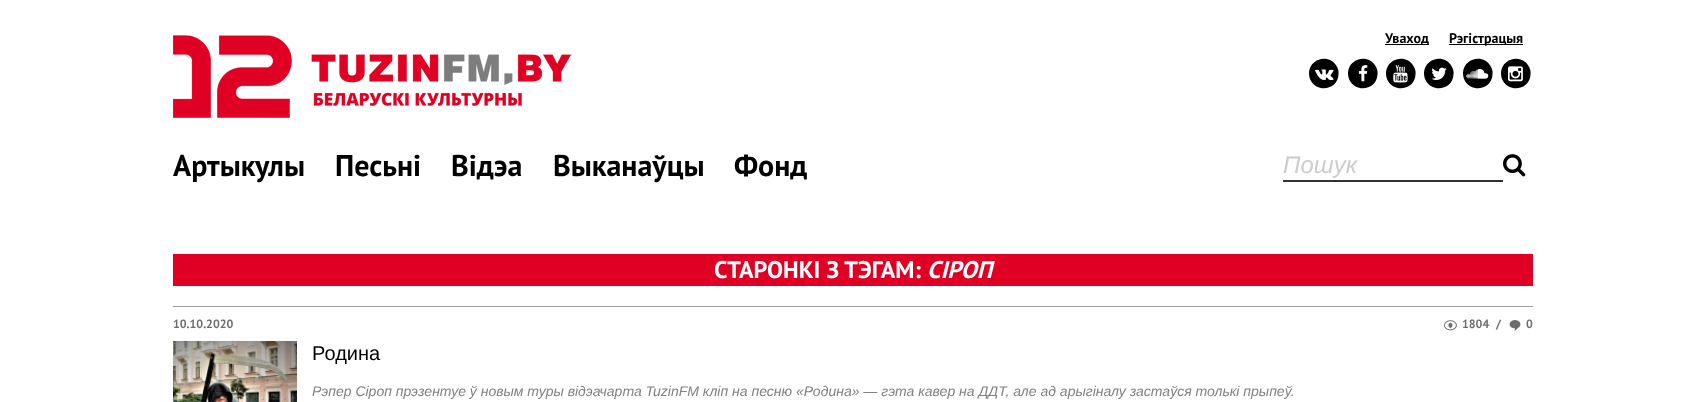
<svg xmlns="http://www.w3.org/2000/svg" width="1706" height="402" viewBox="0 0 1706 402">
  <rect width="100%" height="100%" fill="#ffffff"/>
  <rect x="1385" y="44" width="44" height="1" fill="#000000"/>
  <text x="1385" y="43" font-family="PT Sans" font-size="14" font-weight="bold" fill="#000000">Уваход</text>
  <rect x="1449" y="44" width="74" height="1" fill="#000000"/>
  <text x="1449" y="43" font-family="PT Sans" font-size="14" font-weight="bold" fill="#000000">Рэгістрацыя</text>
  <path d="M1336.5 66C1338 68.5 1339 71.5 1338.5 74.5C1338 89 1318.5 93.5 1311 81C1309.5 78.5 1309 75.5 1309 72.5C1310 58 1329.5 53.5 1336.5 66Z" fill="#000000"/>
  <image x="1315" y="69" width="19" height="11" href="img1.png"/>
  <path d="M1375.5 66C1377 68.5 1378 71.5 1377.5 74.5C1377 89 1357.5 93.5 1350 81C1348.5 78.5 1348 75.5 1348 72.5C1349 58 1368.5 53.5 1375.5 66Z" fill="#000000"/>
  <image x="1358" y="65" width="10" height="17" href="img2.png"/>
  <path d="M1413.5 66C1415 68.5 1416 71.5 1415.5 74.5C1415 89 1395.5 93.5 1388 81C1386.5 78.5 1386 75.5 1386 72.5C1387 58 1406.5 53.5 1413.5 66Z" fill="#000000"/>
  <image x="1393" y="65" width="15" height="18" href="img3.png"/>
  <path d="M1451.5 66C1453 68.5 1454 71.5 1453.5 74.5C1453 89 1433.5 93.5 1426 81C1424.5 78.5 1424 75.5 1424 72.5C1425 58 1444.5 53.5 1451.5 66Z" fill="#000000"/>
  <image x="1431" y="67" width="16" height="13" href="img4.png"/>
  <path d="M1490.5 66C1492 68.5 1493 71.5 1492.5 74.5C1492 89 1472.5 93.5 1465 81C1463.5 78.5 1463 75.5 1463 72.5C1464 58 1483.5 53.5 1490.5 66Z" fill="#000000"/>
  <image x="1466" y="69" width="23" height="10" href="img5.png"/>
  <path d="M1528.5 66C1530 68.5 1531 71.5 1530.5 74.5C1530 89 1510.5 93.5 1503 81C1501.5 78.5 1501 75.5 1501 72.5C1502 58 1521.5 53.5 1528.5 66Z" fill="#000000"/>
  <image x="1508" y="66" width="15" height="16" href="img6.png"/>
  <text x="173" y="176" font-family="PT Sans" font-size="30" font-weight="bold" fill="#000000">Артыкулы</text>
  <text x="335" y="176" font-family="PT Sans" font-size="30" font-weight="bold" fill="#000000">Песьні</text>
  <text x="451" y="176" font-family="PT Sans" font-size="30" font-weight="bold" fill="#000000">Відэа</text>
  <text x="553" y="176" font-family="PT Sans" font-size="30" font-weight="bold" fill="#000000">Выканаўцы</text>
  <text x="734" y="176" font-family="PT Sans" font-size="30" font-weight="bold" fill="#000000">Фонд</text>
  <rect x="1283" y="180" width="220" height="2" fill="#333333"/>
  <text x="1283" y="173" font-family="Liberation Sans" font-size="24" font-style="italic" fill="#cccccc">Пошук</text>
  <image x="1503" y="154" width="23" height="23" href="img7.png"/>
  <image x="173" y="35" width="399" height="83" href="img8.png"/>
  <rect x="173" y="254" width="1360" height="32" fill="#df0024"/>
  <text x="714" y="278" font-family="PT Sans" font-size="24" font-weight="bold" fill="#ffffff">СТАРОНКІ З ТЭГАМ:</text>
  <text x="927" y="278" font-family="PT Sans" font-size="24" font-weight="bold" font-style="italic" fill="#ffffff">СІРОП</text>
  <rect x="173" y="306" width="1360" height="1" fill="#9e9e9e"/>
  <text x="173" y="328" font-family="PT Sans" font-size="12" font-weight="bold" fill="#6d6d6d">10.10.2020</text>
  <image x="1444" y="320" width="13" height="11" href="img9.png"/>
  <text x="1462" y="328" font-family="PT Sans" font-size="12" font-weight="bold" fill="#6d6d6d">1804</text>
  <text x="1496" y="328" font-family="PT Sans" font-size="12" font-weight="bold" fill="#6d6d6d">/</text>
  <image x="1509" y="320" width="12" height="11" href="img10.png"/>
  <text x="1526" y="328" font-family="PT Sans" font-size="12" font-weight="bold" fill="#6d6d6d">0</text>
  <image x="173" y="341" width="124" height="61" href="img11.png"/>
  <text x="312" y="360" font-family="Liberation Sans" font-size="20" fill="#000000">Родина</text>
  <text x="312" y="396" font-family="Liberation Sans" font-size="14" font-style="italic" fill="#808080">Рэпер Сіроп прэзентуе ў новым туры відэачарта TuzinFM кліп на песню «Родина» — гэта кавер на ДДТ, але ад арыгіналу застаўся толькі прыпеў.</text>
</svg>
